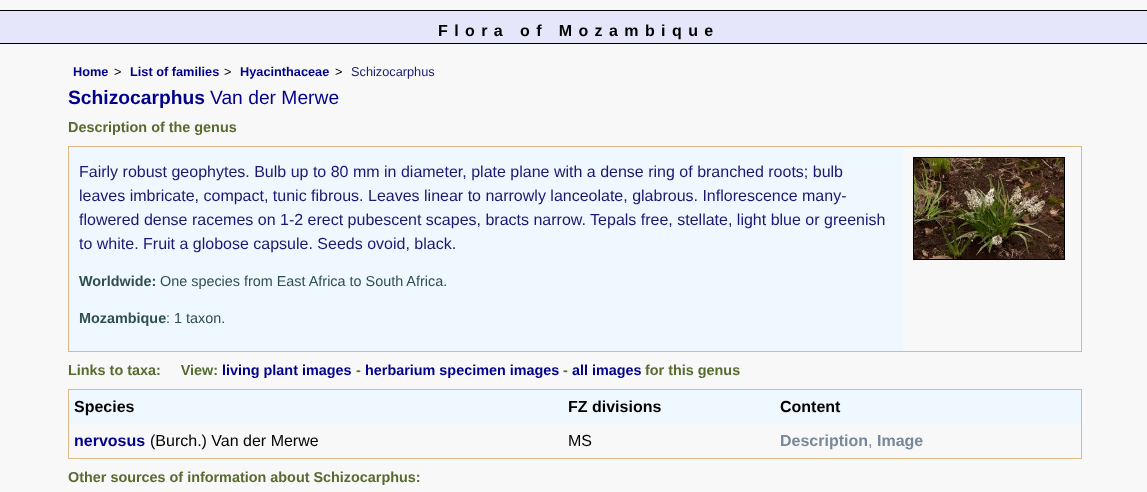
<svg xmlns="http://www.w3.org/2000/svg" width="1147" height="492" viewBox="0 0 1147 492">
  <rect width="100%" height="100%" fill="#f8f8f8"/>
  <rect x="0" y="11" width="1147" height="32" fill="#e6e6fa"/>
  <rect x="0" y="10" width="1147" height="1" fill="#000000"/>
  <rect x="0" y="43" width="1147" height="1" fill="#000000"/>
  <text x="438" y="36" font-family="Liberation Sans" font-size="16" font-weight="bold" letter-spacing="6.4" fill="#000000">Flora of Mozambique</text>
  <text x="73" y="76" font-family="Liberation Sans" font-size="12.75" font-weight="bold" fill="#00008b">Home</text>
  <text x="114" y="76" font-family="Liberation Sans" font-size="12.75" fill="#000000">&gt;</text>
  <text x="130" y="76" font-family="Liberation Sans" font-size="12.75" font-weight="bold" fill="#00008b">List of families</text>
  <text x="224" y="76" font-family="Liberation Sans" font-size="12.75" fill="#000000">&gt;</text>
  <text x="240" y="76" font-family="Liberation Sans" font-size="12.75" font-weight="bold" fill="#00008b">Hyacinthaceae</text>
  <text x="335" y="76" font-family="Liberation Sans" font-size="12.75" fill="#000000">&gt;</text>
  <text x="351" y="76" font-family="Liberation Sans" font-size="12.75" fill="#191970">Schizocarphus</text>
  <text x="68" y="104" font-family="Liberation Sans" font-size="19.25" font-weight="bold" fill="#00008b">Schizocarphus</text>
  <text x="210" y="104" font-family="Liberation Sans" font-size="19.25" fill="#00008b">Van der Merwe</text>
  <text x="68" y="132" font-family="Liberation Sans" font-size="14.4" font-weight="bold" fill="#556b2f">Description of the genus</text>
  <rect x="68" y="146" width="1014" height="1" fill="#deb887"/>
  <rect x="1081" y="146" width="1" height="206" fill="#deb887"/>
  <rect x="68" y="351" width="1014" height="1" fill="#deb887"/>
  <rect x="68" y="146" width="1" height="206" fill="#deb887"/>
  <rect x="69" y="147" width="834" height="204" fill="#f0f8ff"/>
  <text x="79" y="177" font-family="Liberation Sans" font-size="16" fill="#191970">Fairly robust geophytes. Bulb up to 80 mm in diameter, plate plane with a dense ring of branched roots; bulb</text>
  <text x="79" y="201" font-family="Liberation Sans" font-size="16" fill="#191970">leaves imbricate, compact, tunic fibrous. Leaves linear to narrowly lanceolate, glabrous. Inflorescence many-</text>
  <text x="79" y="225" font-family="Liberation Sans" font-size="16" fill="#191970">flowered dense racemes on 1-2 erect pubescent scapes, bracts narrow. Tepals free, stellate, light blue or greenish</text>
  <text x="79" y="249" font-family="Liberation Sans" font-size="16" fill="#191970">to white. Fruit a globose capsule. Seeds ovoid, black.</text>
  <text x="79" y="286" font-family="Liberation Sans" font-size="14.4" font-weight="bold" fill="#2f4f4f">Worldwide:</text>
  <text x="160" y="286" font-family="Liberation Sans" font-size="14.4" fill="#2f4f4f">One species from East Africa to South Africa.</text>
  <text x="79" y="323" font-family="Liberation Sans" font-size="14.4" font-weight="bold" fill="#2f4f4f">Mozambique</text>
  <text x="166" y="323" font-family="Liberation Sans" font-size="14.4" fill="#2f4f4f">: 1 taxon.</text>
  <rect x="913.5" y="157.5" width="151" height="102" fill="none" stroke="#000000"/>
  <image x="914" y="158" width="150" height="101" href="img1.png"/>
  <text x="68" y="375" font-family="Liberation Sans" font-size="14.4" font-weight="bold" fill="#556b2f" xml:space="preserve">Links to taxa:     View:</text>
  <text x="222" y="375" font-family="Liberation Sans" font-size="14.4" font-weight="bold" fill="#00008b">living plant images</text>
  <text x="356" y="375" font-family="Liberation Sans" font-size="14.4" font-weight="bold" fill="#556b2f">-</text>
  <text x="365" y="375" font-family="Liberation Sans" font-size="14.4" font-weight="bold" fill="#00008b">herbarium specimen images</text>
  <text x="563" y="375" font-family="Liberation Sans" font-size="14.4" font-weight="bold" fill="#556b2f">-</text>
  <text x="572" y="375" font-family="Liberation Sans" font-size="14.4" font-weight="bold" fill="#00008b">all images</text>
  <text x="645" y="375" font-family="Liberation Sans" font-size="14.4" font-weight="bold" fill="#556b2f">for this genus</text>
  <rect x="68" y="389" width="1014" height="1" fill="#deb887"/>
  <rect x="1081" y="389" width="1" height="70" fill="#deb887"/>
  <rect x="68" y="458" width="1014" height="1" fill="#deb887"/>
  <rect x="68" y="389" width="1" height="70" fill="#deb887"/>
  <rect x="69" y="390" width="1012" height="34" fill="#f0f8ff"/>
  <text x="74" y="412" font-family="Liberation Sans" font-size="16" font-weight="bold" fill="#000000">Species</text>
  <text x="568" y="412" font-family="Liberation Sans" font-size="16" font-weight="bold" fill="#000000">FZ divisions</text>
  <text x="780" y="412" font-family="Liberation Sans" font-size="16" font-weight="bold" fill="#000000">Content</text>
  <text x="74" y="446" font-family="Liberation Sans" font-size="16" font-weight="bold" fill="#00008b">nervosus</text>
  <text x="150" y="446" font-family="Liberation Sans" font-size="16" fill="#000000">(Burch.) Van der Merwe</text>
  <text x="568" y="446" font-family="Liberation Sans" font-size="16" fill="#000000">MS</text>
  <text x="780" y="446" font-family="Liberation Sans" font-size="16" font-weight="bold" fill="#778899">Description</text>
  <text x="868" y="446" font-family="Liberation Sans" font-size="16" fill="#778899">,</text>
  <text x="877" y="446" font-family="Liberation Sans" font-size="16" font-weight="bold" fill="#778899">Image</text>
  <text x="68" y="482" font-family="Liberation Sans" font-size="14.4" font-weight="bold" fill="#556b2f">Other sources of information about Schizocarphus:</text>
</svg>
